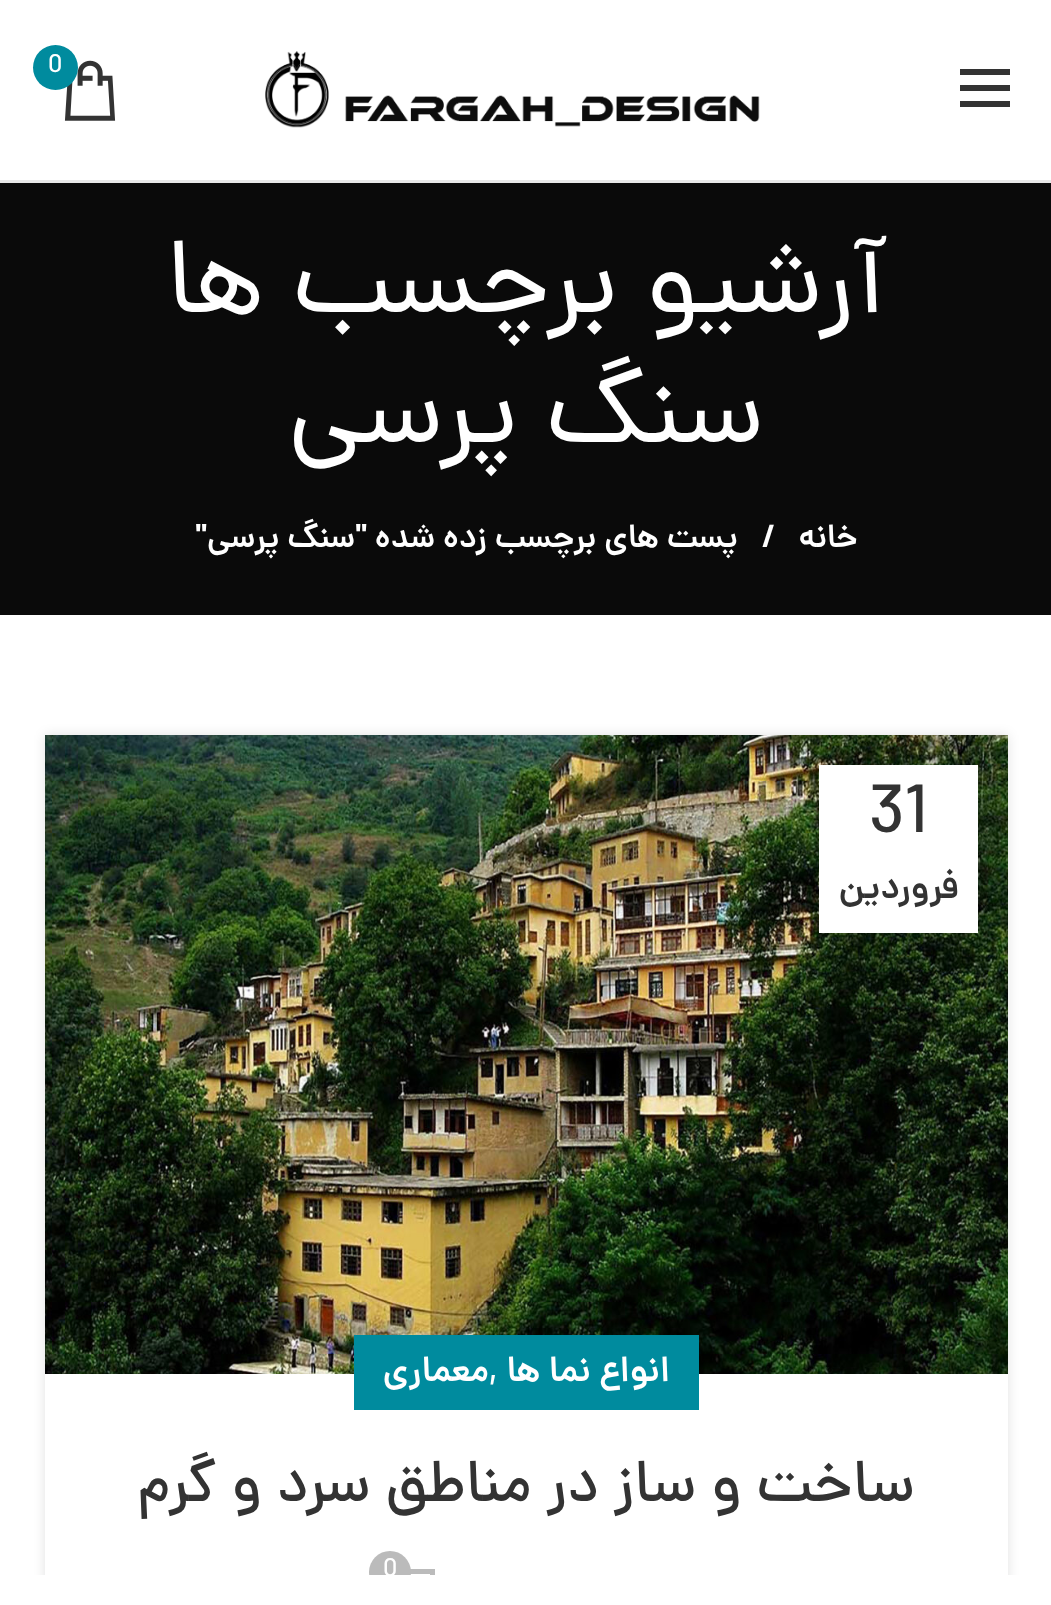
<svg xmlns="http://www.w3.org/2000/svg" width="1051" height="1605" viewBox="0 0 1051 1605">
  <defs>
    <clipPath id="clip1"><rect x="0" y="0" width="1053" height="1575"/></clipPath>
    <clipPath id="clip2"><path d="M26 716H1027V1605H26ZM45 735H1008V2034H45Z" clip-rule="evenodd"/></clipPath>
    <filter id="blur1" x="-50%" y="-200%" width="200%" height="500%"><feGaussianBlur stdDeviation="6"/></filter>
    <filter id="blur2" x="-50%" y="-200%" width="200%" height="500%"><feGaussianBlur stdDeviation="13.5"/></filter>
    <clipPath id="clip3"><rect x="0" y="0" width="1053" height="1575"/></clipPath>
  </defs>
  <rect width="100%" height="100%" fill="#ffffff"/>
  <rect x="0" y="180" width="1051" height="3" fill="#e8e8e8"/>
  <image x="265" y="51" width="495" height="77" href="img1.png"/>
  <image x="64" y="60" width="52" height="61" href="img2.png"/>
  <circle cx="55.5" cy="67.5" r="22.5" fill="#008b9e"/>
  <text x="48" y="72" font-family="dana" font-size="27" fill="#ffffff">0</text>
  <path d="M960 69H1010V75H960ZM960 85H1010V91H960ZM960 101H1010V107H960Z" fill="#333333"/>
  <rect x="0" y="183" width="1051" height="432" fill="#0a0a0a"/>
  <text x="886" y="312" font-family="dana" font-size="108" direction="rtl" fill="#ffffff">آرشیو برچسب ها</text>
  <text x="764" y="442" font-family="dana" font-size="108" direction="rtl" fill="#ffffff">سنگ پرسی</text>
  <text x="858" y="547" font-family="dana" font-size="33" font-weight="600" direction="rtl" fill="#ffffff">خانه</text>
  <text x="762" y="547" font-family="dana" font-size="33" font-weight="600" fill="#ffffff">/</text>
  <text x="738" y="547" font-family="dana" font-size="33" font-weight="600" direction="rtl" fill="#ffffff">پست های برچسب زده شده "سنگ پرسی"</text>
  <g clip-path="url(#clip1)">
    <g clip-path="url(#clip2)">
      <rect x="45" y="735" width="963" height="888" fill="#000000" fill-opacity="0.12" filter="url(#blur1)"/>
    </g>
  </g>
  <image x="45" y="735" width="963" height="639" href="img3.png"/>
  <rect x="819" y="765" width="159" height="168" fill="#000000" fill-opacity="0.1" filter="url(#blur2)"/>
  <rect x="819" y="765" width="159" height="168" fill="#ffffff"/>
  <text x="869" y="832" font-family="dana" font-size="72" fill="#333333">31</text>
  <text x="959" y="898" font-family="dana" font-size="36" font-weight="600" direction="rtl" fill="#333333">فروردین</text>
  <rect x="354" y="1335" width="345" height="75" fill="#008b9e"/>
  <text x="670" y="1381" font-family="dana" font-size="36" font-weight="600" direction="rtl" fill="#ffffff">انواع نما ها</text>
  <text x="489" y="1381" font-family="dana" font-size="42" fill="#ffffff">,</text>
  <text x="489" y="1381" font-family="dana" font-size="36" font-weight="600" direction="rtl" fill="#ffffff">معماری</text>
  <text x="915" y="1501" font-family="dana" font-size="60" font-weight="500" direction="rtl" fill="#333333">ساخت و ساز در مناطق سرد و گرم</text>
  <g clip-path="url(#clip3)">
    <path d="M387 1569H435V1604H426L410 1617V1604H387ZM430 1600V1574H392V1600H414V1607L424 1600Z" fill="#bbbbbb"/>
    <circle cx="390" cy="1572" r="21" fill="#bbbbbb"/>
    <text x="383" y="1576" font-family="dana" font-size="27" fill="#ffffff">0</text>
  </g>
</svg>
